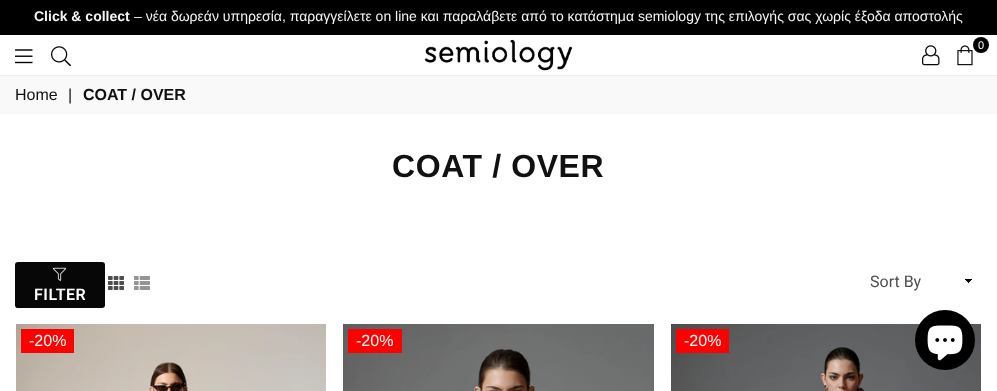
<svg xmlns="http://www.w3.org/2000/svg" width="997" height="391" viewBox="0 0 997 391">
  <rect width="100%" height="100%" fill="#ffffff"/>
  <rect x="0" y="0" width="997" height="35" fill="#000000"/>
  <text x="34" y="21" font-family="Liberation Sans" font-size="14" font-weight="bold" fill="#f5f5f5">Click &amp; collect</text>
  <text x="134" y="21" font-family="Liberation Sans" font-size="14" fill="#f5f5f5">– νέα δωρεάν υπηρεσία, παραγγείλετε οn line και παραλάβετε από το κατάστημα semiology της επιλογής σας χωρίς έξοδα αποστολής</text>
  <rect x="0" y="75" width="997" height="1" fill="#eeeeee"/>
  <image x="15" y="49" width="18" height="15" href="img1.png"/>
  <image x="51" y="46" width="20" height="21" href="img2.png"/>
  <image x="424" y="39" width="149" height="32" href="img3.png"/>
  <image x="922" y="45" width="18" height="21" href="img4.png"/>
  <image x="957" y="45" width="16" height="21" href="img5.png"/>
  <circle cx="981" cy="45" r="8" fill="#000000"/>
  <text x="978" y="49" font-family="Liberation Sans" font-size="11" fill="#ffffff">0</text>
  <rect x="0" y="76" width="997" height="38" fill="#f9f9f9"/>
  <text x="15" y="100" font-family="Liberation Sans" font-size="16" fill="#111111">Home</text>
  <text x="68" y="100" font-family="Liberation Sans" font-size="16" fill="#111111">|</text>
  <text x="83" y="100" font-family="Liberation Sans" font-size="16" font-weight="bold" fill="#111111">COAT / OVER</text>
  <text x="392" y="177" font-family="Liberation Sans" font-size="32" font-weight="bold" letter-spacing="0.6" fill="#111111">COAT / OVER</text>
  <image x="108" y="276" width="16" height="14" href="img6.png"/>
  <image x="134" y="276" width="16" height="14" href="img7.png"/>
  <image x="965" y="279" width="7" height="4" href="img8.png"/>
  <text x="870" y="287" font-family="Roboto" font-size="16" fill="#504d4d">Sort By</text>
  <rect x="15" y="262" width="90" height="46" rx="3" fill="#070707"/>
  <image x="53" y="267" width="13" height="14" href="img9.png"/>
  <text x="34" y="300" font-family="Roboto" font-size="16" font-weight="600" letter-spacing="0.5" fill="#ffffff">FILTER</text>
  <image x="16" y="324" width="310" height="67" href="img10.png"/>
  <rect x="21" y="329" width="53" height="24" fill="#ff0000"/>
  <text x="29" y="346" font-family="Liberation Sans" font-size="16" fill="#ffffff">-20%</text>
  <image x="343" y="324" width="311" height="67" href="img11.png"/>
  <rect x="348" y="329" width="54" height="24" fill="#ff0000"/>
  <text x="356" y="346" font-family="Liberation Sans" font-size="16" fill="#ffffff">-20%</text>
  <image x="671" y="324" width="310" height="67" href="img12.png"/>
  <rect x="676" y="329" width="53" height="24" fill="#ff0000"/>
  <text x="684" y="346" font-family="Liberation Sans" font-size="16" fill="#ffffff">-20%</text>
  <circle cx="945" cy="340" r="30" fill="#000000"/>
  <image x="927" y="325" width="36" height="36" href="img13.png"/>
</svg>
